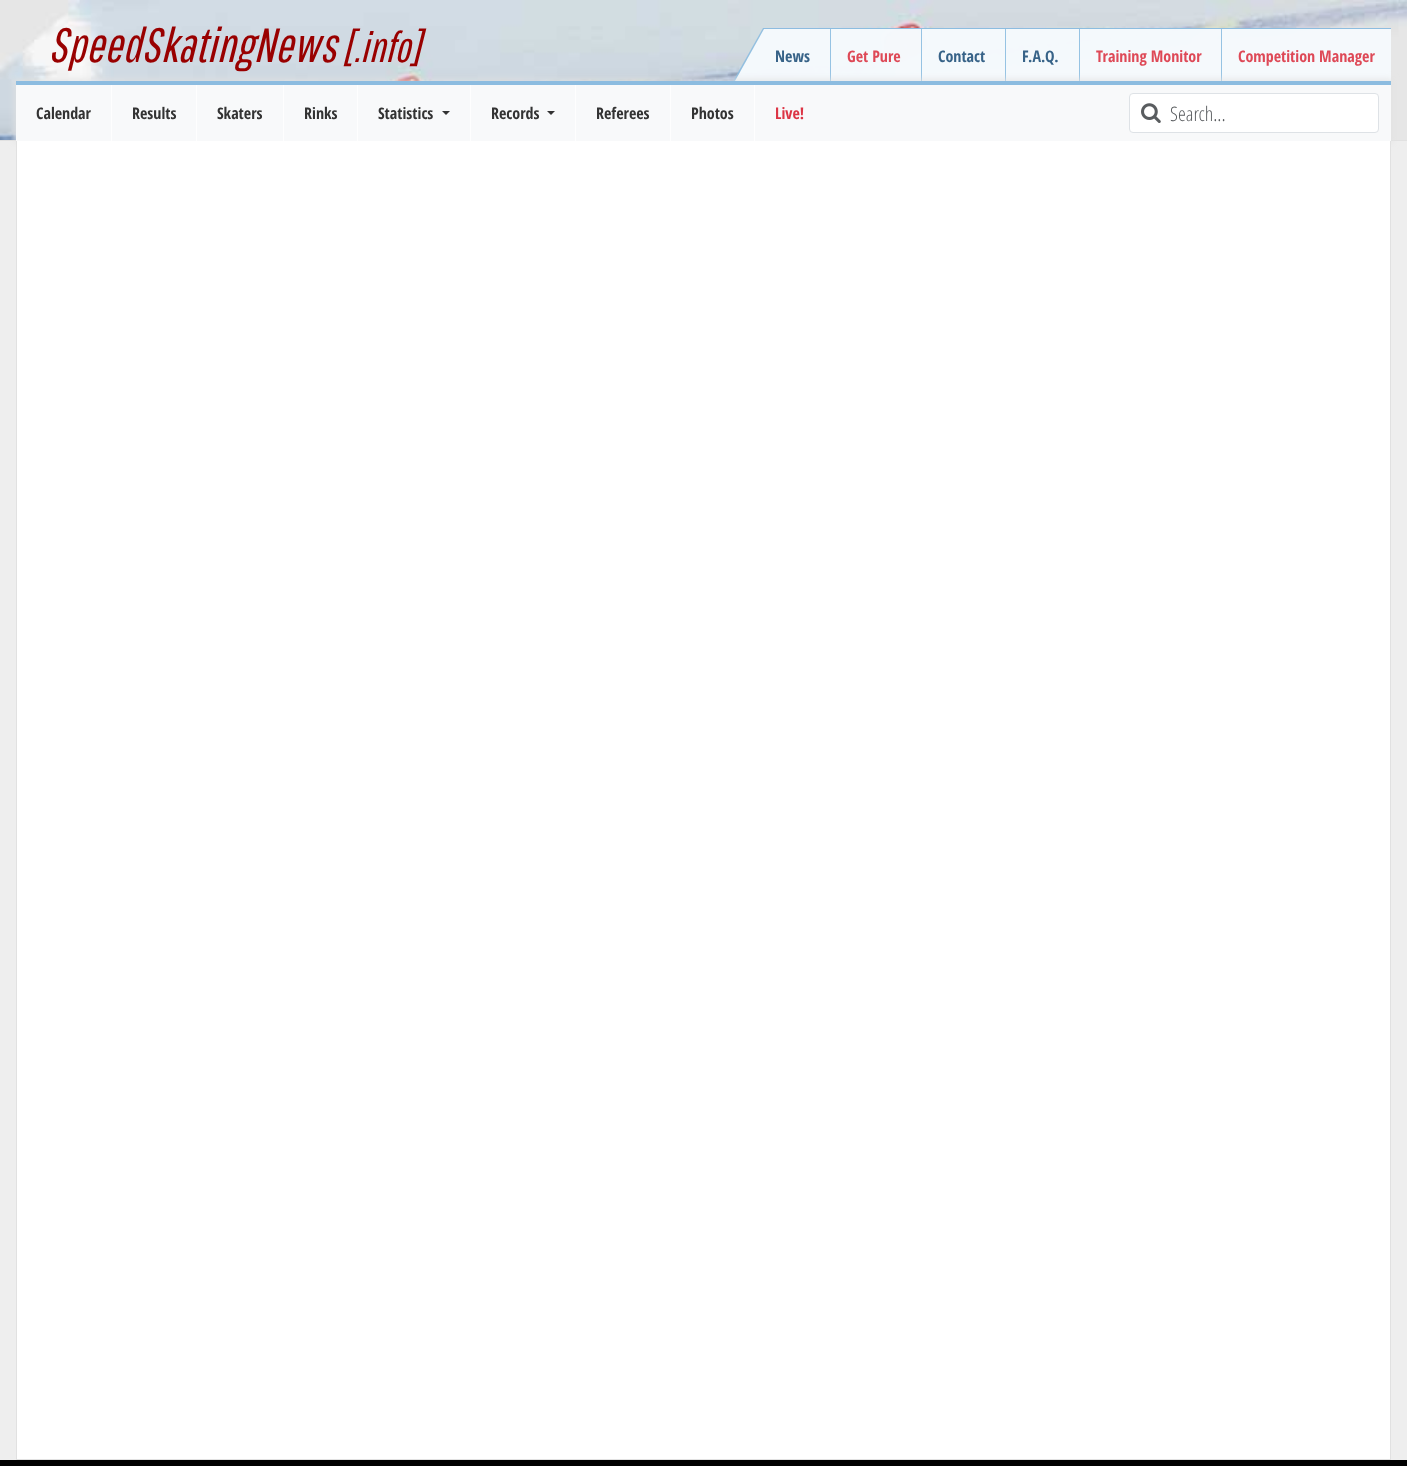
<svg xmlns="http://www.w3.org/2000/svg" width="1407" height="1466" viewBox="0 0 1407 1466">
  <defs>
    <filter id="blur1" x="-50%" y="-200%" width="200%" height="500%"><feGaussianBlur stdDeviation="3"/></filter>
  </defs>
  <rect width="100%" height="100%" fill="#eeeeee"/>
  <image x="0" y="0" width="1407" height="140" href="img1.png"/>
  <rect x="0" y="140" width="1407" height="1" fill="#e1e1e1"/>
  <text x="48" y="62" font-family="Pathway Gothic One" font-size="48" font-style="italic" fill="#990000">SpeedSkatingNews</text>
  <text x="342" y="62" font-family="Pathway Gothic One" font-size="42" font-style="italic" fill="#990000">[.info]</text>
  <path d="M763 28L727 92H1391V28Z" fill="#8cbce0" fill-opacity="0.9"/>
  <path d="M764 29L730 90H1391V29Z" fill="#ffffff" fill-opacity="0.9"/>
  <text x="775" y="62" font-family="Open Sans Condensed" font-size="16" font-weight="bold" fill="#376388">News</text>
  <rect x="763" y="28" width="68" height="1" fill="#8dbce0"/>
  <rect x="830" y="28" width="1" height="55" fill="#8cbce0" fill-opacity="0.9"/>
  <text x="847" y="62" font-family="Open Sans Condensed" font-size="16" font-weight="bold" fill="#de4957">Get Pure</text>
  <rect x="831" y="28" width="91" height="1" fill="#8cbce0" fill-opacity="0.9"/>
  <rect x="921" y="28" width="1" height="55" fill="#8cbce0" fill-opacity="0.9"/>
  <text x="938" y="62" font-family="Open Sans Condensed" font-size="16" font-weight="bold" fill="#376388">Contact</text>
  <rect x="922" y="28" width="84" height="1" fill="#8cbce0" fill-opacity="0.9"/>
  <rect x="1005" y="28" width="1" height="55" fill="#8cbce0" fill-opacity="0.9"/>
  <text x="1022" y="62" font-family="Open Sans Condensed" font-size="16" font-weight="bold" fill="#376388">F.A.Q.</text>
  <rect x="1006" y="28" width="74" height="1" fill="#8dbce0"/>
  <rect x="1079" y="28" width="1" height="55" fill="#8cbce0" fill-opacity="0.9"/>
  <text x="1096" y="62" font-family="Open Sans Condensed" font-size="16" font-weight="bold" fill="#de4957">Training Monitor</text>
  <rect x="1080" y="28" width="142" height="1" fill="#8cbce0" fill-opacity="0.9"/>
  <rect x="1221" y="28" width="1" height="55" fill="#8cbce0" fill-opacity="0.9"/>
  <text x="1238" y="62" font-family="Open Sans Condensed" font-size="16" font-weight="bold" fill="#de4957">Competition Manager</text>
  <rect x="1222" y="28" width="169" height="1" fill="#8cbce0" fill-opacity="0.9"/>
  <rect x="14" y="79" width="1379" height="64" fill="#e1e1e1" fill-opacity="0.75" filter="url(#blur1)"/>
  <rect x="16" y="85" width="1375" height="56" fill="#f8f9fa"/>
  <rect x="16" y="81" width="1375" height="4" fill="#8cbce0"/>
  <rect x="111" y="85" width="1" height="56" fill="#fefefe"/>
  <text x="36" y="119" font-family="Open Sans Condensed" font-size="16" font-weight="bold" fill="#333333">Calendar</text>
  <rect x="196" y="85" width="1" height="56" fill="#fefefe"/>
  <text x="132" y="119" font-family="Open Sans Condensed" font-size="16" font-weight="bold" fill="#333333">Results</text>
  <rect x="283" y="85" width="1" height="56" fill="#fefefe"/>
  <text x="217" y="119" font-family="Open Sans Condensed" font-size="16" font-weight="bold" fill="#333333">Skaters</text>
  <rect x="357" y="85" width="1" height="56" fill="#fefefe"/>
  <text x="304" y="119" font-family="Open Sans Condensed" font-size="16" font-weight="bold" fill="#333333">Rinks</text>
  <rect x="470" y="85" width="1" height="56" fill="#fefefe"/>
  <text x="378" y="119" font-family="Open Sans Condensed" font-size="16" font-weight="bold" fill="#333333">Statistics</text>
  <path d="M442 111H450L446 115Z" fill="#333333"/>
  <rect x="575" y="85" width="1" height="56" fill="#fefefe"/>
  <text x="491" y="119" font-family="Open Sans Condensed" font-size="16" font-weight="bold" fill="#333333">Records</text>
  <path d="M547 111H555L551 115Z" fill="#333333"/>
  <rect x="670" y="85" width="1" height="56" fill="#fefefe"/>
  <text x="596" y="119" font-family="Open Sans Condensed" font-size="16" font-weight="bold" fill="#333333">Referees</text>
  <rect x="754" y="85" width="1" height="56" fill="#fefefe"/>
  <text x="691" y="119" font-family="Open Sans Condensed" font-size="16" font-weight="bold" fill="#333333">Photos</text>
  <text x="775" y="119" font-family="Open Sans Condensed" font-size="16" font-weight="bold" fill="#dc3545">Live!</text>
  <rect x="1129.5" y="93.5" width="249" height="39" rx="3.5" fill="#ffffff" stroke="#dee2e6"/>
  <image x="1141" y="103" width="20" height="20" href="img2.png"/>
  <text x="1170" y="121" font-family="Open Sans" font-size="20" font-weight="300" fill="#595c5f">Search...</text>
  <rect x="17" y="141" width="1373" height="1318" fill="#ffffff"/>
  <rect x="1390" y="141" width="1" height="1319" fill="#e1e1e1"/>
  <rect x="16" y="1459" width="1375" height="1" fill="#e1e1e1"/>
  <rect x="16" y="141" width="1" height="1319" fill="#e1e1e1"/>
  <rect x="0" y="1460" width="1407" height="6" fill="#000000"/>
</svg>
